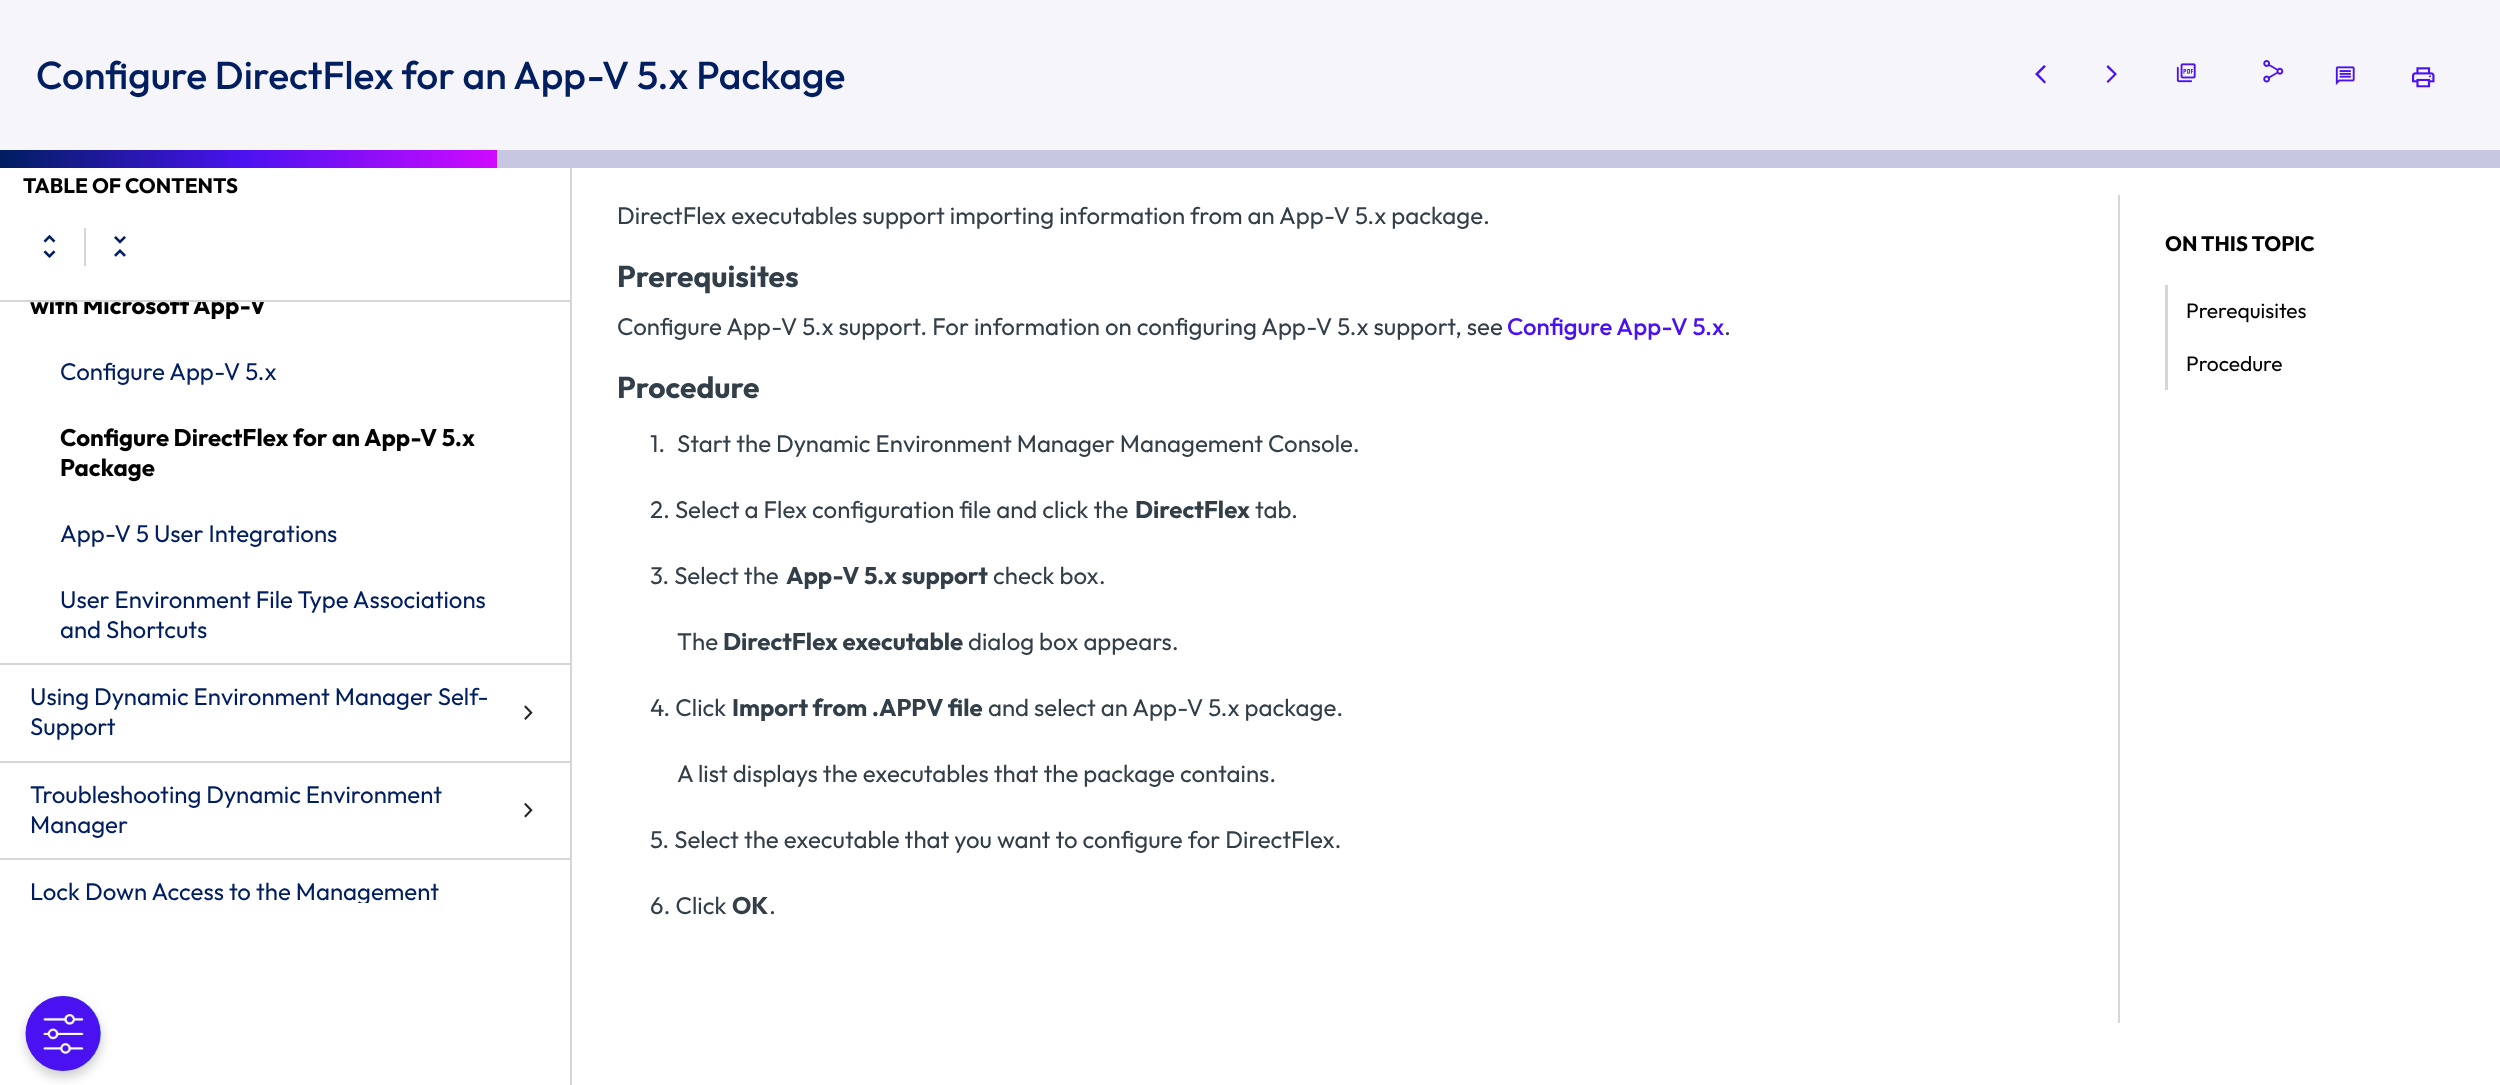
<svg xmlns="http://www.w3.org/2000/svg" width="2500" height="1085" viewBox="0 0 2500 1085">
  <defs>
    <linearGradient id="g1" gradientUnits="userSpaceOnUse" x1="0" y1="159" x2="497" y2="159"><stop offset="0" stop-color="#001e60"/><stop offset="0.49" stop-color="#4a12f0"/><stop offset="1" stop-color="#d00aff"/></linearGradient>
    <clipPath id="clip1"><rect x="0" y="302" width="570" height="601"/></clipPath>
    <filter id="blur1" x="-50%" y="-200%" width="200%" height="500%"><feGaussianBlur stdDeviation="6"/></filter>
  </defs>
  <rect width="100%" height="100%" fill="#ffffff"/>
  <rect x="0" y="0" width="2500" height="150" fill="#f6f5fa"/>
  <text x="36" y="89" font-family="Outfit" font-size="39" font-weight="500" fill="#001e60">Configure DirectFlex for an App-V 5.x Package</text>
  <path d="M2046 66.5L2044 65L2035 74L2044.5 83.5L2046 82L2038.5 74Z" fill="#4a12f0"/>
  <path d="M2106.5 81.5L2108 83L2117 74L2108 65L2106.5 67L2114 74Z" fill="#4a12f0"/>
  <image x="2176" y="63" width="20" height="20" href="img1.png"/>
  <image x="2263" y="60" width="21" height="23" href="img2.png"/>
  <image x="2335" y="66" width="20" height="19" href="img3.png"/>
  <image x="2412" y="67" width="23" height="21" href="img4.png"/>
  <rect x="0" y="150" width="497" height="18" fill="url(#g1)"/>
  <rect x="497" y="150" width="2003" height="18" fill="#c8c7e2"/>
  <rect x="570" y="168" width="2" height="917" fill="#d6d6d6"/>
  <rect x="0" y="300" width="570" height="2" fill="#d6d6d6"/>
  <text x="23" y="193" font-family="Outfit" font-size="21" font-weight="bold" fill="#000000">TABLE OF CONTENTS</text>
  <image x="43" y="234" width="13" height="24" href="img5.png"/>
  <rect x="84" y="228" width="2" height="38" fill="#d6d6d6"/>
  <image x="114" y="236" width="12" height="21" href="img6.png"/>
  <rect x="0" y="663" width="570" height="2" fill="#d6d6d6"/>
  <g clip-path="url(#clip1)">
    <text x="30" y="314" font-family="Outfit" font-size="24" font-weight="bold" fill="#000000">with Microsoft App-V</text>
  </g>
  <text x="60" y="380" font-family="Outfit" font-size="24" font-weight="100" fill="#001e60">Configure App-V 5.x</text>
  <text x="60" y="446" font-family="Outfit" font-size="24" font-weight="bold" fill="#000000">Configure DirectFlex for an App-V 5.x</text>
  <text x="60" y="476" font-family="Outfit" font-size="24" font-weight="bold" fill="#000000">Package</text>
  <text x="60" y="542" font-family="Outfit" font-size="24" font-weight="100" fill="#001e60">App-V 5 User Integrations</text>
  <text x="60" y="608" font-family="Outfit" font-size="24" font-weight="100" fill="#001e60">User Environment File Type Associations</text>
  <text x="60" y="638" font-family="Outfit" font-size="24" font-weight="100" fill="#001e60">and Shortcuts</text>
  <rect x="0" y="761" width="570" height="2" fill="#d6d6d6"/>
  <text x="30" y="705" font-family="Outfit" font-size="24" font-weight="100" fill="#001e60">Using Dynamic Environment Manager Self-</text>
  <text x="30" y="735" font-family="Outfit" font-size="24" font-weight="100" fill="#001e60">Support</text>
  <image x="524" y="705" width="9" height="15" href="img7.png"/>
  <rect x="0" y="858" width="570" height="2" fill="#d6d6d6"/>
  <text x="30" y="803" font-family="Outfit" font-size="24" font-weight="100" fill="#001e60">Troubleshooting Dynamic Environment</text>
  <text x="30" y="833" font-family="Outfit" font-size="24" font-weight="100" fill="#001e60">Manager</text>
  <image x="524" y="803" width="9" height="15" href="img8.png"/>
  <g clip-path="url(#clip1)">
    <text x="30" y="900" font-family="Outfit" font-size="24" font-weight="100" fill="#001e60">Lock Down Access to the Management</text>
  </g>
  <text x="617" y="224" font-family="Outfit" font-size="24" font-weight="100" fill="#323e48">DirectFlex executables support importing information from an App-V 5.x package.</text>
  <text x="617" y="287" font-family="Outfit" font-size="30" font-weight="bold" fill="#323e48">Prerequisites</text>
  <text x="617" y="335" font-family="Outfit" font-size="24" font-weight="100" fill="#323e48">Configure App-V 5.x support. For information on configuring App-V 5.x support, see</text>
  <text x="1507" y="335" font-family="Outfit" font-size="24" font-weight="500" fill="#4a12f0">Configure App-V 5.x</text>
  <text x="1724" y="335" font-family="Outfit" font-size="24" font-weight="100" fill="#323e48">.</text>
  <text x="617" y="398" font-family="Outfit" font-size="30" font-weight="bold" fill="#323e48">Procedure</text>
  <text x="650" y="452" font-family="Outfit" font-size="24" font-weight="100" fill="#323e48">1.</text>
  <text x="677" y="452" font-family="Outfit" font-size="24" font-weight="100" fill="#323e48">Start the Dynamic Environment Manager Management Console.</text>
  <text x="650" y="518" font-family="Outfit" font-size="24" font-weight="100" fill="#323e48">2. Select a Flex configuration file and click the</text>
  <text x="1135" y="518" font-family="Outfit" font-size="24" font-weight="bold" fill="#323e48">DirectFlex</text>
  <text x="1255" y="518" font-family="Outfit" font-size="24" font-weight="100" fill="#323e48">tab.</text>
  <text x="650" y="584" font-family="Outfit" font-size="24" font-weight="100" fill="#323e48">3. Select the</text>
  <text x="786" y="584" font-family="Outfit" font-size="24" font-weight="bold" fill="#323e48">App-V 5.x support</text>
  <text x="993" y="584" font-family="Outfit" font-size="24" font-weight="100" fill="#323e48">check box.</text>
  <text x="677" y="650" font-family="Outfit" font-size="24" font-weight="100" fill="#323e48">The</text>
  <text x="723" y="650" font-family="Outfit" font-size="24" font-weight="bold" fill="#323e48">DirectFlex executable</text>
  <text x="968" y="650" font-family="Outfit" font-size="24" font-weight="100" fill="#323e48">dialog box appears.</text>
  <text x="650" y="716" font-family="Outfit" font-size="24" font-weight="100" fill="#323e48">4. Click</text>
  <text x="732" y="716" font-family="Outfit" font-size="24" font-weight="bold" fill="#323e48">Import from .APPV file</text>
  <text x="988" y="716" font-family="Outfit" font-size="24" font-weight="100" fill="#323e48">and select an App-V 5.x package.</text>
  <text x="677" y="782" font-family="Outfit" font-size="24" font-weight="100" fill="#323e48">A list displays the executables that the package contains.</text>
  <text x="650" y="848" font-family="Outfit" font-size="24" font-weight="100" fill="#323e48">5. Select the executable that you want to configure for DirectFlex.</text>
  <text x="650" y="914" font-family="Outfit" font-size="24" font-weight="100" fill="#323e48">6. Click</text>
  <text x="732" y="914" font-family="Outfit" font-size="24" font-weight="bold" fill="#323e48">OK</text>
  <text x="769" y="914" font-family="Outfit" font-size="24" font-weight="100" fill="#323e48">.</text>
  <rect x="2118" y="195" width="2" height="828" fill="#d6d6d6"/>
  <text x="2165" y="251" font-family="Outfit" font-size="21" font-weight="bold" fill="#000000">ON THIS TOPIC</text>
  <rect x="2165" y="285" width="3" height="105" fill="#d6d6d6"/>
  <text x="2186" y="318" font-family="Outfit" font-size="21" font-weight="100" fill="#000000">Prerequisites</text>
  <text x="2186" y="371" font-family="Outfit" font-size="21" font-weight="100" fill="#000000">Procedure</text>
  <rect x="26" y="1002" width="75" height="75" rx="37.5" fill="#000000" fill-opacity="0.2" filter="url(#blur1)"/>
  <circle cx="63.5" cy="1033.5" r="37.5" fill="#6aaae4"/>
  <image x="25" y="996" width="76" height="75" href="img9.png"/>
</svg>
